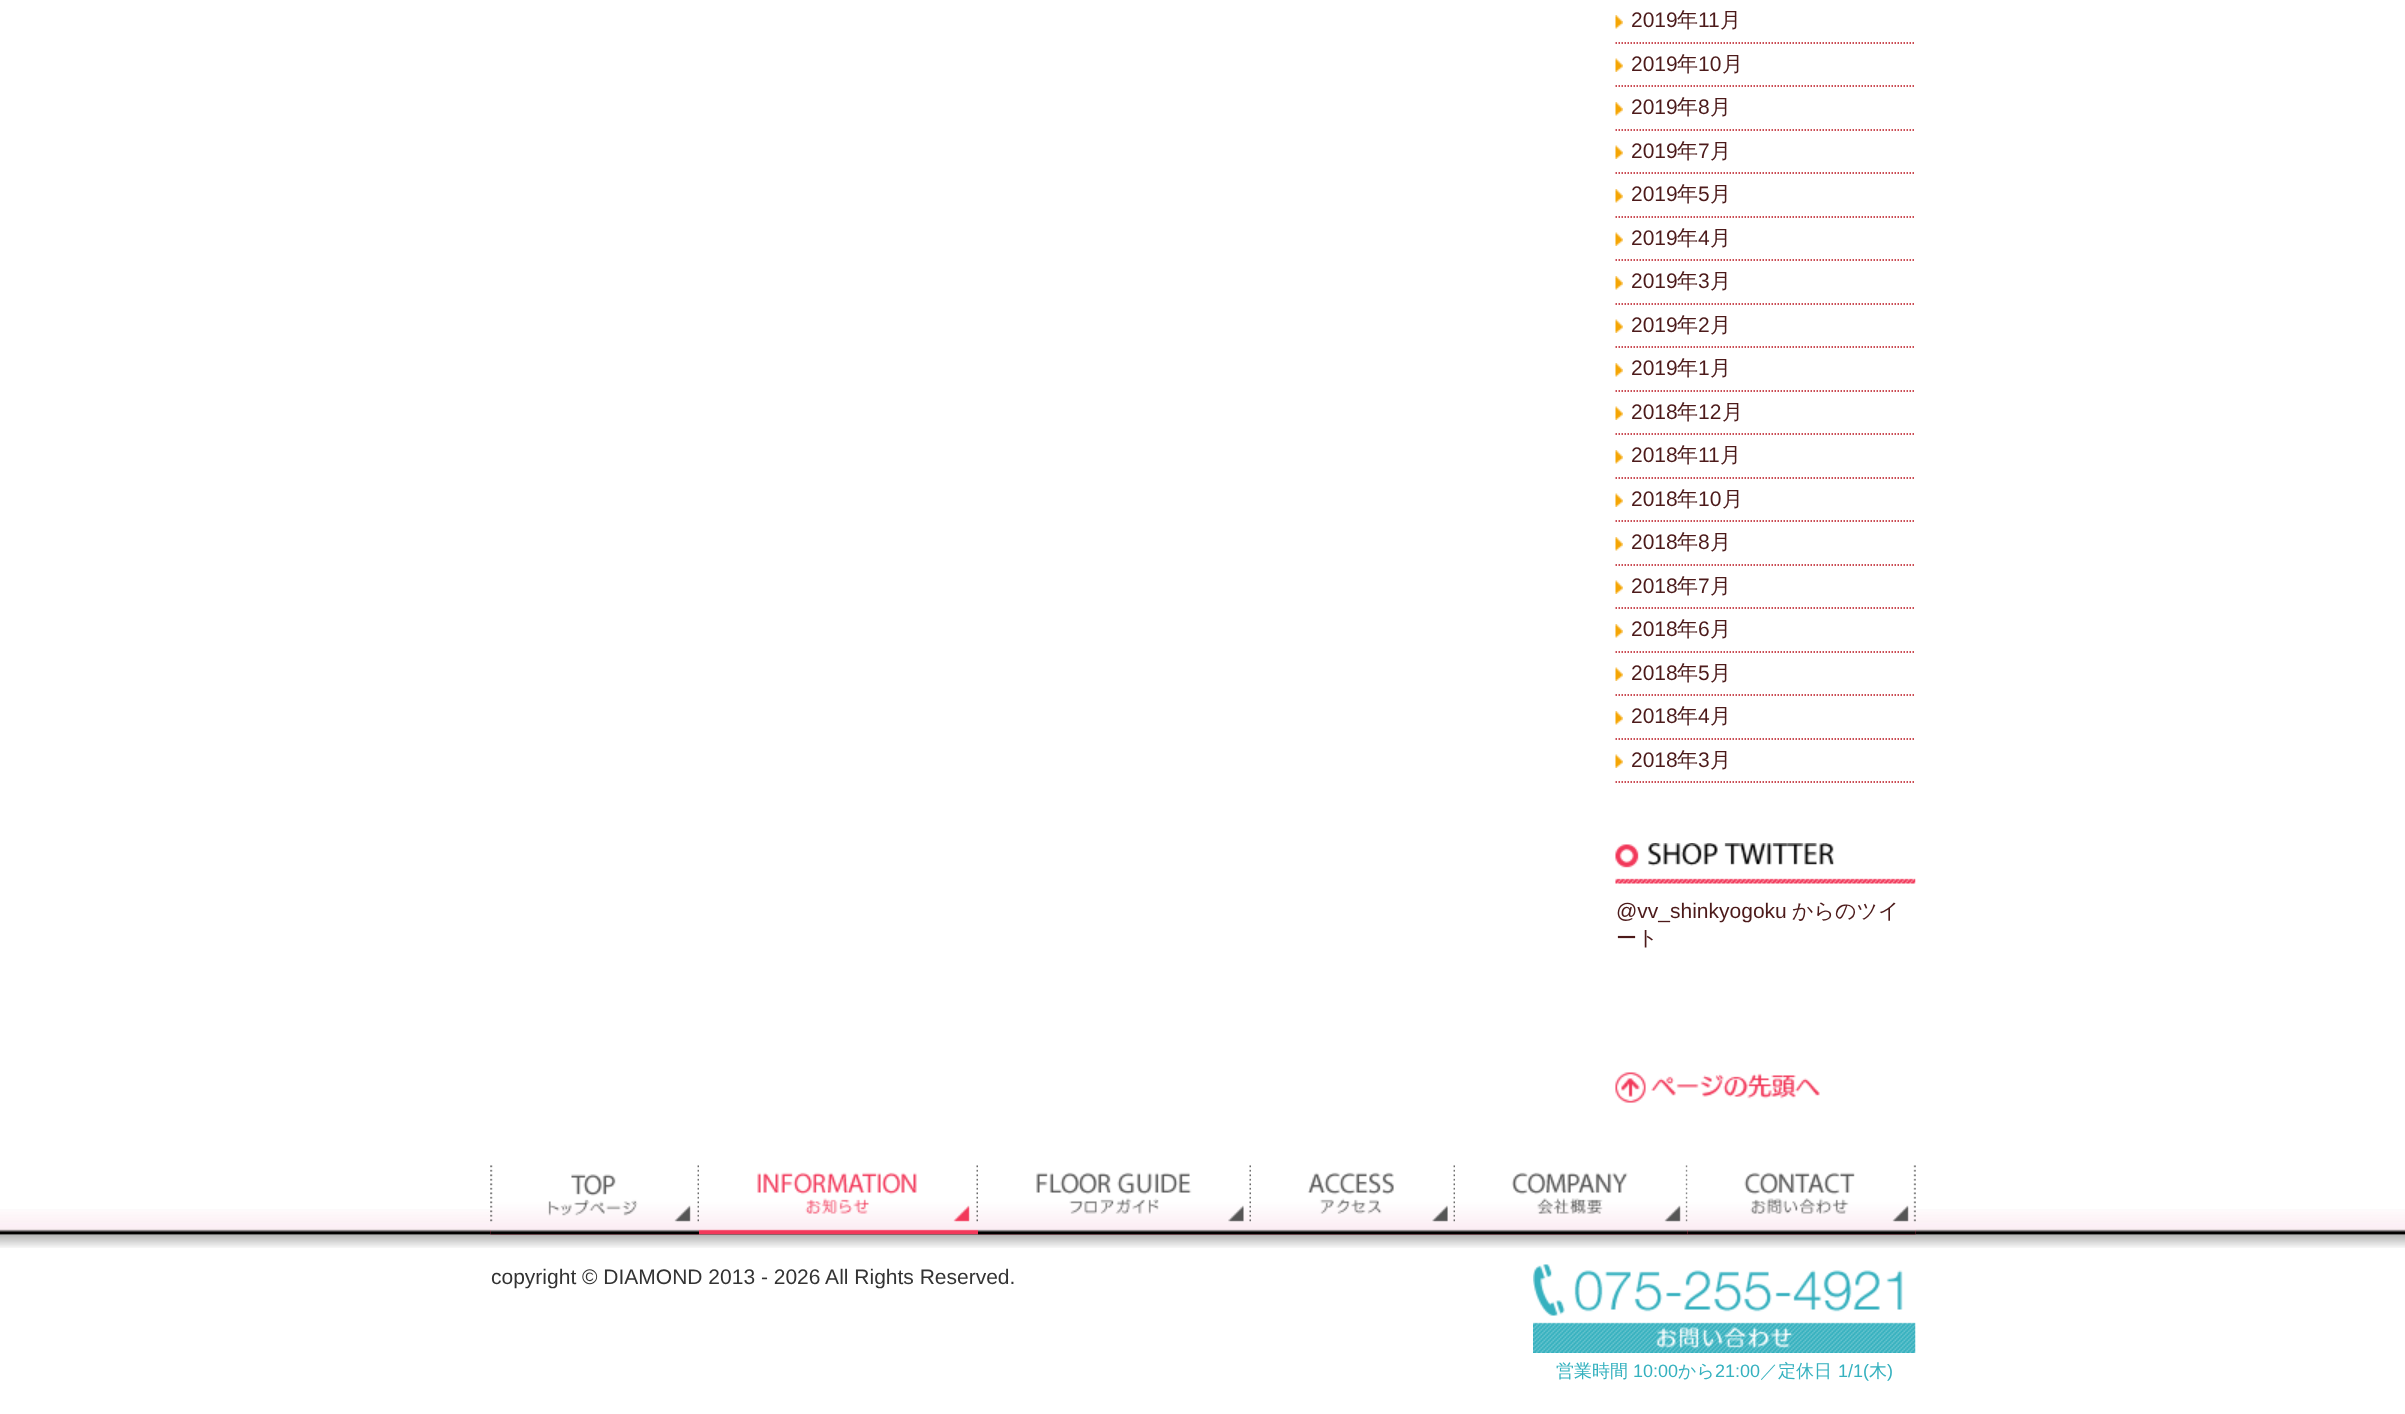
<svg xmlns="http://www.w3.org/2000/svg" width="2405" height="1414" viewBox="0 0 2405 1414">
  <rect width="100%" height="100%" fill="#ffffff"/>
  <image x="1615" y="15" width="8" height="14" href="img1.png"/>
  <path d="M1615.5 43H1915.5" fill="none" stroke="#b9121b" stroke-width="1.5" stroke-dasharray="1.5 1.5"/>
  <text x="1631" y="27" font-family="Liberation Sans" font-size="21" fill="#4c1a1a">2019</text>
  <text x="1677" y="27" font-family="WenQuanYi Zen Hei" font-size="21" font-weight="500" fill="#4c1a1a">年</text>
  <text x="1698" y="27" font-family="Liberation Sans" font-size="21" fill="#4c1a1a">11</text>
  <text x="1720" y="27" font-family="WenQuanYi Zen Hei" font-size="21" font-weight="500" fill="#4c1a1a">月</text>
  <image x="1615" y="58" width="8" height="14" href="img2.png"/>
  <path d="M1615.5 86H1915.5" fill="none" stroke="#b9121b" stroke-width="1.5" stroke-dasharray="1.5 1.5"/>
  <text x="1631" y="71" font-family="Liberation Sans" font-size="21" fill="#4c1a1a">2019</text>
  <text x="1677" y="71" font-family="WenQuanYi Zen Hei" font-size="21" font-weight="500" fill="#4c1a1a">年</text>
  <text x="1698" y="71" font-family="Liberation Sans" font-size="21" fill="#4c1a1a">10</text>
  <text x="1722" y="71" font-family="WenQuanYi Zen Hei" font-size="21" font-weight="500" fill="#4c1a1a">月</text>
  <image x="1615" y="102" width="8" height="14" href="img1.png"/>
  <path d="M1615.5 130H1915.5" fill="none" stroke="#b9121b" stroke-width="1.5" stroke-dasharray="1.5 1.5"/>
  <text x="1631" y="114" font-family="Liberation Sans" font-size="21" fill="#4c1a1a">2019</text>
  <text x="1677" y="114" font-family="WenQuanYi Zen Hei" font-size="21" font-weight="500" fill="#4c1a1a">年</text>
  <text x="1698" y="114" font-family="Liberation Sans" font-size="21" fill="#4c1a1a">8</text>
  <text x="1710" y="114" font-family="WenQuanYi Zen Hei" font-size="21" font-weight="500" fill="#4c1a1a">月</text>
  <image x="1615" y="145" width="8" height="14" href="img2.png"/>
  <path d="M1615.5 173H1915.5" fill="none" stroke="#b9121b" stroke-width="1.5" stroke-dasharray="1.5 1.5"/>
  <text x="1631" y="158" font-family="Liberation Sans" font-size="21" fill="#4c1a1a">2019</text>
  <text x="1677" y="158" font-family="WenQuanYi Zen Hei" font-size="21" font-weight="500" fill="#4c1a1a">年</text>
  <text x="1698" y="158" font-family="Liberation Sans" font-size="21" fill="#4c1a1a">7</text>
  <text x="1710" y="158" font-family="WenQuanYi Zen Hei" font-size="21" font-weight="500" fill="#4c1a1a">月</text>
  <image x="1615" y="189" width="8" height="14" href="img1.png"/>
  <path d="M1615.5 217H1915.5" fill="none" stroke="#b9121b" stroke-width="1.5" stroke-dasharray="1.5 1.5"/>
  <text x="1631" y="201" font-family="Liberation Sans" font-size="21" fill="#4c1a1a">2019</text>
  <text x="1677" y="201" font-family="WenQuanYi Zen Hei" font-size="21" font-weight="500" fill="#4c1a1a">年</text>
  <text x="1698" y="201" font-family="Liberation Sans" font-size="21" fill="#4c1a1a">5</text>
  <text x="1710" y="201" font-family="WenQuanYi Zen Hei" font-size="21" font-weight="500" fill="#4c1a1a">月</text>
  <image x="1615" y="232" width="8" height="14" href="img2.png"/>
  <path d="M1615.5 260H1915.5" fill="none" stroke="#b9121b" stroke-width="1.5" stroke-dasharray="1.5 1.5"/>
  <text x="1631" y="245" font-family="Liberation Sans" font-size="21" fill="#4c1a1a">2019</text>
  <text x="1677" y="245" font-family="WenQuanYi Zen Hei" font-size="21" font-weight="500" fill="#4c1a1a">年</text>
  <text x="1698" y="245" font-family="Liberation Sans" font-size="21" fill="#4c1a1a">4</text>
  <text x="1710" y="245" font-family="WenQuanYi Zen Hei" font-size="21" font-weight="500" fill="#4c1a1a">月</text>
  <image x="1615" y="276" width="8" height="14" href="img1.png"/>
  <path d="M1615.5 304H1915.5" fill="none" stroke="#b9121b" stroke-width="1.5" stroke-dasharray="1.5 1.5"/>
  <text x="1631" y="288" font-family="Liberation Sans" font-size="21" fill="#4c1a1a">2019</text>
  <text x="1677" y="288" font-family="WenQuanYi Zen Hei" font-size="21" font-weight="500" fill="#4c1a1a">年</text>
  <text x="1698" y="288" font-family="Liberation Sans" font-size="21" fill="#4c1a1a">3</text>
  <text x="1710" y="288" font-family="WenQuanYi Zen Hei" font-size="21" font-weight="500" fill="#4c1a1a">月</text>
  <image x="1615" y="319" width="8" height="14" href="img2.png"/>
  <path d="M1615.5 347H1915.5" fill="none" stroke="#b9121b" stroke-width="1.5" stroke-dasharray="1.5 1.5"/>
  <text x="1631" y="332" font-family="Liberation Sans" font-size="21" fill="#4c1a1a">2019</text>
  <text x="1677" y="332" font-family="WenQuanYi Zen Hei" font-size="21" font-weight="500" fill="#4c1a1a">年</text>
  <text x="1698" y="332" font-family="Liberation Sans" font-size="21" fill="#4c1a1a">2</text>
  <text x="1710" y="332" font-family="WenQuanYi Zen Hei" font-size="21" font-weight="500" fill="#4c1a1a">月</text>
  <image x="1615" y="363" width="8" height="14" href="img1.png"/>
  <path d="M1615.5 391H1915.5" fill="none" stroke="#b9121b" stroke-width="1.5" stroke-dasharray="1.5 1.5"/>
  <text x="1631" y="375" font-family="Liberation Sans" font-size="21" fill="#4c1a1a">2019</text>
  <text x="1677" y="375" font-family="WenQuanYi Zen Hei" font-size="21" font-weight="500" fill="#4c1a1a">年</text>
  <text x="1698" y="375" font-family="Liberation Sans" font-size="21" fill="#4c1a1a">1</text>
  <text x="1710" y="375" font-family="WenQuanYi Zen Hei" font-size="21" font-weight="500" fill="#4c1a1a">月</text>
  <image x="1615" y="406" width="8" height="14" href="img2.png"/>
  <path d="M1615.5 434H1915.5" fill="none" stroke="#b9121b" stroke-width="1.5" stroke-dasharray="1.5 1.5"/>
  <text x="1631" y="419" font-family="Liberation Sans" font-size="21" fill="#4c1a1a">2018</text>
  <text x="1677" y="419" font-family="WenQuanYi Zen Hei" font-size="21" font-weight="500" fill="#4c1a1a">年</text>
  <text x="1698" y="419" font-family="Liberation Sans" font-size="21" fill="#4c1a1a">12</text>
  <text x="1722" y="419" font-family="WenQuanYi Zen Hei" font-size="21" font-weight="500" fill="#4c1a1a">月</text>
  <image x="1615" y="450" width="8" height="14" href="img1.png"/>
  <path d="M1615.5 478H1915.5" fill="none" stroke="#b9121b" stroke-width="1.5" stroke-dasharray="1.5 1.5"/>
  <text x="1631" y="462" font-family="Liberation Sans" font-size="21" fill="#4c1a1a">2018</text>
  <text x="1677" y="462" font-family="WenQuanYi Zen Hei" font-size="21" font-weight="500" fill="#4c1a1a">年</text>
  <text x="1698" y="462" font-family="Liberation Sans" font-size="21" fill="#4c1a1a">11</text>
  <text x="1720" y="462" font-family="WenQuanYi Zen Hei" font-size="21" font-weight="500" fill="#4c1a1a">月</text>
  <image x="1615" y="493" width="8" height="14" href="img2.png"/>
  <path d="M1615.5 521H1915.5" fill="none" stroke="#b9121b" stroke-width="1.5" stroke-dasharray="1.5 1.5"/>
  <text x="1631" y="506" font-family="Liberation Sans" font-size="21" fill="#4c1a1a">2018</text>
  <text x="1677" y="506" font-family="WenQuanYi Zen Hei" font-size="21" font-weight="500" fill="#4c1a1a">年</text>
  <text x="1698" y="506" font-family="Liberation Sans" font-size="21" fill="#4c1a1a">10</text>
  <text x="1722" y="506" font-family="WenQuanYi Zen Hei" font-size="21" font-weight="500" fill="#4c1a1a">月</text>
  <image x="1615" y="537" width="8" height="14" href="img1.png"/>
  <path d="M1615.5 565H1915.5" fill="none" stroke="#b9121b" stroke-width="1.5" stroke-dasharray="1.5 1.5"/>
  <text x="1631" y="549" font-family="Liberation Sans" font-size="21" fill="#4c1a1a">2018</text>
  <text x="1677" y="549" font-family="WenQuanYi Zen Hei" font-size="21" font-weight="500" fill="#4c1a1a">年</text>
  <text x="1698" y="549" font-family="Liberation Sans" font-size="21" fill="#4c1a1a">8</text>
  <text x="1710" y="549" font-family="WenQuanYi Zen Hei" font-size="21" font-weight="500" fill="#4c1a1a">月</text>
  <image x="1615" y="580" width="8" height="14" href="img2.png"/>
  <path d="M1615.5 608H1915.5" fill="none" stroke="#b9121b" stroke-width="1.5" stroke-dasharray="1.5 1.5"/>
  <text x="1631" y="593" font-family="Liberation Sans" font-size="21" fill="#4c1a1a">2018</text>
  <text x="1677" y="593" font-family="WenQuanYi Zen Hei" font-size="21" font-weight="500" fill="#4c1a1a">年</text>
  <text x="1698" y="593" font-family="Liberation Sans" font-size="21" fill="#4c1a1a">7</text>
  <text x="1710" y="593" font-family="WenQuanYi Zen Hei" font-size="21" font-weight="500" fill="#4c1a1a">月</text>
  <image x="1615" y="624" width="8" height="14" href="img1.png"/>
  <path d="M1615.5 652H1915.5" fill="none" stroke="#b9121b" stroke-width="1.5" stroke-dasharray="1.5 1.5"/>
  <text x="1631" y="636" font-family="Liberation Sans" font-size="21" fill="#4c1a1a">2018</text>
  <text x="1677" y="636" font-family="WenQuanYi Zen Hei" font-size="21" font-weight="500" fill="#4c1a1a">年</text>
  <text x="1698" y="636" font-family="Liberation Sans" font-size="21" fill="#4c1a1a">6</text>
  <text x="1710" y="636" font-family="WenQuanYi Zen Hei" font-size="21" font-weight="500" fill="#4c1a1a">月</text>
  <image x="1615" y="667" width="8" height="14" href="img2.png"/>
  <path d="M1615.5 695H1915.5" fill="none" stroke="#b9121b" stroke-width="1.5" stroke-dasharray="1.5 1.5"/>
  <text x="1631" y="680" font-family="Liberation Sans" font-size="21" fill="#4c1a1a">2018</text>
  <text x="1677" y="680" font-family="WenQuanYi Zen Hei" font-size="21" font-weight="500" fill="#4c1a1a">年</text>
  <text x="1698" y="680" font-family="Liberation Sans" font-size="21" fill="#4c1a1a">5</text>
  <text x="1710" y="680" font-family="WenQuanYi Zen Hei" font-size="21" font-weight="500" fill="#4c1a1a">月</text>
  <image x="1615" y="711" width="8" height="14" href="img1.png"/>
  <path d="M1615.5 739H1915.5" fill="none" stroke="#b9121b" stroke-width="1.5" stroke-dasharray="1.5 1.5"/>
  <text x="1631" y="723" font-family="Liberation Sans" font-size="21" fill="#4c1a1a">2018</text>
  <text x="1677" y="723" font-family="WenQuanYi Zen Hei" font-size="21" font-weight="500" fill="#4c1a1a">年</text>
  <text x="1698" y="723" font-family="Liberation Sans" font-size="21" fill="#4c1a1a">4</text>
  <text x="1710" y="723" font-family="WenQuanYi Zen Hei" font-size="21" font-weight="500" fill="#4c1a1a">月</text>
  <image x="1615" y="754" width="8" height="14" href="img2.png"/>
  <path d="M1615.5 782H1915.5" fill="none" stroke="#b9121b" stroke-width="1.5" stroke-dasharray="1.5 1.5"/>
  <text x="1631" y="767" font-family="Liberation Sans" font-size="21" fill="#4c1a1a">2018</text>
  <text x="1677" y="767" font-family="WenQuanYi Zen Hei" font-size="21" font-weight="500" fill="#4c1a1a">年</text>
  <text x="1698" y="767" font-family="Liberation Sans" font-size="21" fill="#4c1a1a">3</text>
  <text x="1710" y="767" font-family="WenQuanYi Zen Hei" font-size="21" font-weight="500" fill="#4c1a1a">月</text>
  <image x="1615" y="843" width="301" height="41" href="img3.png"/>
  <text x="1616" y="918" font-family="Liberation Sans" font-size="21" fill="#4c1a1a">@vv_shinkyogoku</text>
  <text x="1792" y="918" font-family="WenQuanYi Zen Hei" font-size="21" font-weight="500" fill="#4c1a1a">からのツイ</text>
  <text x="1616" y="945" font-family="WenQuanYi Zen Hei" font-size="21" font-weight="500" fill="#4c1a1a">ート</text>
  <image x="1615" y="1072" width="205" height="31" href="img4.png"/>
  <image x="0" y="1234" width="2405" height="14" href="img17.png"/>
  <image x="0" y="1209" width="2405" height="26" href="img5.png"/>
  <image x="490" y="1165" width="209" height="70" href="img6.png"/>
  <image x="490" y="1165" width="209" height="70" href="img7.png"/>
  <image x="699" y="1165" width="279" height="70" href="img8.png"/>
  <image x="978" y="1165" width="273" height="70" href="img9.png"/>
  <image x="978" y="1172" width="273" height="63" href="img10.png"/>
  <image x="1251" y="1165" width="204" height="70" href="img11.png"/>
  <image x="1251" y="1172" width="204" height="63" href="img12.png"/>
  <image x="1455" y="1165" width="233" height="70" href="img13.png"/>
  <image x="1455" y="1165" width="233" height="70" href="img14.png"/>
  <image x="1687" y="1165" width="229" height="70" href="img15.png"/>
  <image x="1687" y="1165" width="229" height="70" href="img16.png"/>
  <text x="491" y="1284" font-family="Liberation Sans" font-size="21" fill="#333333">copyright © DIAMOND 2013 - 2026 All Rights Reserved.</text>
  <image x="1533" y="1264" width="383" height="89" href="img18.png"/>
  <text x="1556" y="1377" font-family="WenQuanYi Zen Hei" font-size="18" font-weight="500" fill="#35b1bf">営業時間</text>
  <text x="1633" y="1377" font-family="Liberation Sans" font-size="18" fill="#35b1bf">10:00</text>
  <text x="1678" y="1377" font-family="WenQuanYi Zen Hei" font-size="18" font-weight="500" fill="#35b1bf">から</text>
  <text x="1715" y="1377" font-family="Liberation Sans" font-size="18" fill="#35b1bf">21:00</text>
  <text x="1760" y="1377" font-family="WenQuanYi Zen Hei" font-size="18" font-weight="500" fill="#35b1bf">／定休日</text>
  <text x="1838" y="1377" font-family="Liberation Sans" font-size="18" fill="#35b1bf">1/1(</text>
  <text x="1869" y="1377" font-family="WenQuanYi Zen Hei" font-size="18" font-weight="500" fill="#35b1bf">木</text>
  <text x="1887" y="1377" font-family="Liberation Sans" font-size="18" fill="#35b1bf">)</text>
</svg>
